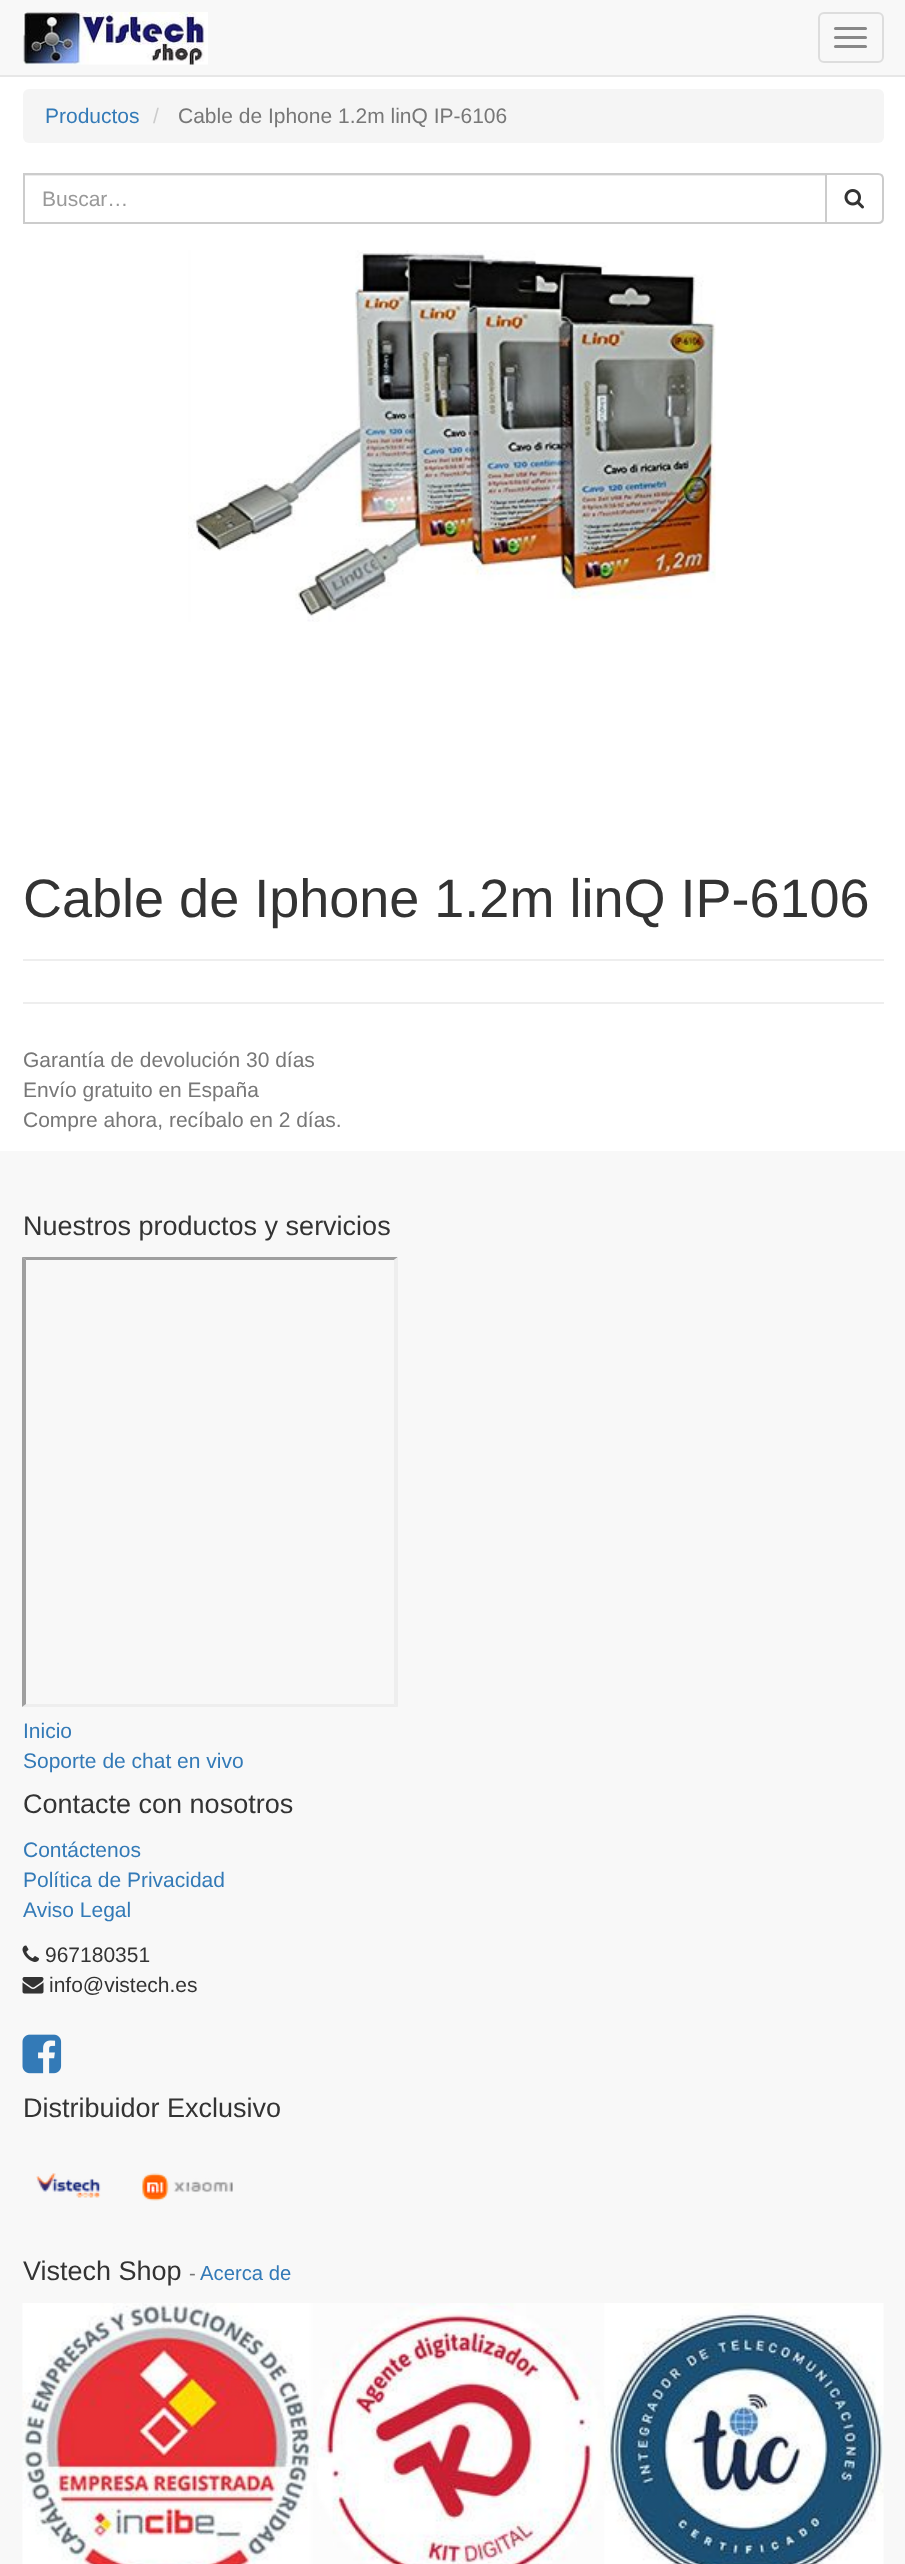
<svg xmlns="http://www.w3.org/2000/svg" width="905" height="2564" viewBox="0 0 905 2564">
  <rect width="100%" height="100%" fill="#ffffff"/>
  <rect x="0" y="0" width="905" height="75" fill="#f8f8f8"/>
  <rect x="0" y="75" width="905" height="2" fill="#e7e7e7"/>
  <image x="23" y="12" width="185" height="53" href="img1.png"/>
  <rect x="819" y="13" width="64" height="49" rx="5" fill="none" stroke="#dddddd" stroke-width="2"/>
  <rect x="834" y="27" width="33" height="3" rx="1.5" fill="#888888"/>
  <rect x="834" y="36" width="33" height="3" rx="1.5" fill="#888888"/>
  <rect x="834" y="45" width="33" height="3" rx="1.5" fill="#888888"/>
  <rect x="23" y="89" width="861" height="54" rx="6" fill="#f5f5f5"/>
  <text x="45" y="123" font-family="Liberation Sans" font-size="21" fill="#337ab7">Productos</text>
  <text x="153" y="123" font-family="Liberation Sans" font-size="21" fill="#cccccc">/</text>
  <text x="178" y="123" font-family="Liberation Sans" font-size="21" fill="#777777">Cable de Iphone 1.2m linQ IP-6106</text>
  <rect x="24" y="175" width="801" height="1" fill="#ececec"/>
  <rect x="24" y="174" width="802" height="49" fill="none" stroke="#cccccc" stroke-width="2"/>
  <text x="42" y="206" font-family="Liberation Sans" font-size="21" fill="#999999">Buscar…</text>
  <path d="M826 174H878C881 174 883 176 883 179V218C883 221 881 223 878 223H826Z" fill="#ffffff" stroke="#cccccc" stroke-width="2"/>
  <image x="844" y="189" width="20" height="20" href="img2.png"/>
  <image x="188" y="250" width="528" height="372" href="img3.png"/>
  <text x="23" y="917" font-family="Liberation Sans" font-size="54" fill="#333333">Cable de Iphone 1.2m linQ IP-6106</text>
  <rect x="23" y="959" width="861" height="2" fill="#eeeeee"/>
  <rect x="23" y="1002" width="861" height="2" fill="#eeeeee"/>
  <text x="23" y="1067" font-family="Liberation Sans" font-size="21" fill="#777777">Garantía de devolución 30 días</text>
  <text x="23" y="1097" font-family="Liberation Sans" font-size="21" fill="#777777">Envío gratuito en España</text>
  <text x="23" y="1127" font-family="Liberation Sans" font-size="21" fill="#777777">Compre ahora, recíbalo en 2 días.</text>
  <rect x="0" y="1151" width="905" height="1413" fill="#f8f8f8"/>
  <text x="23" y="1235" font-family="Liberation Sans" font-size="27" fill="#333333">Nuestros productos y servicios</text>
  <path d="M22 1257H398L394 1260H26Z" fill="#9f9f9f"/>
  <path d="M398 1257V1707L394 1704V1260Z" fill="#eeeeee"/>
  <path d="M398 1707H22L26 1704H394Z" fill="#eeeeee"/>
  <path d="M22 1707V1257L26 1260V1704Z" fill="#9f9f9f"/>
  <text x="23" y="1738" font-family="Liberation Sans" font-size="21" fill="#337ab7">Inicio</text>
  <text x="23" y="1768" font-family="Liberation Sans" font-size="21" fill="#337ab7">Soporte de chat en vivo</text>
  <text x="23" y="1813" font-family="Liberation Sans" font-size="27" fill="#333333">Contacte con nosotros</text>
  <text x="23" y="1857" font-family="Liberation Sans" font-size="21" fill="#337ab7">Contáctenos</text>
  <text x="23" y="1887" font-family="Liberation Sans" font-size="21" fill="#337ab7">Política de Privacidad</text>
  <text x="23" y="1917" font-family="Liberation Sans" font-size="21" fill="#337ab7">Aviso Legal</text>
  <image x="22" y="1945" width="17" height="17" href="img4.png"/>
  <text x="45" y="1962" font-family="Liberation Sans" font-size="21" fill="#333333">967180351</text>
  <image x="22" y="1977" width="22" height="17" href="img5.png"/>
  <text x="49" y="1992" font-family="Liberation Sans" font-size="21" fill="#333333">info@vistech.es</text>
  <image x="22" y="2034" width="40" height="40" href="img6.png"/>
  <text x="23" y="2117" font-family="Liberation Sans" font-size="27" fill="#333333">Distribuidor Exclusivo</text>
  <image x="36" y="2173" width="65" height="25" href="img7.png"/>
  <image x="142" y="2173" width="91" height="28" href="img8.png"/>
  <text x="23" y="2280" font-family="Liberation Sans" font-size="27" fill="#333333">Vistech Shop</text>
  <text x="189" y="2280" font-family="Liberation Sans" font-size="20.25" fill="#777777">-</text>
  <text x="200" y="2280" font-family="Liberation Sans" font-size="20.25" fill="#337ab7">Acerca de</text>
  <image x="22" y="2303" width="862" height="261" href="img9.png"/>
</svg>
